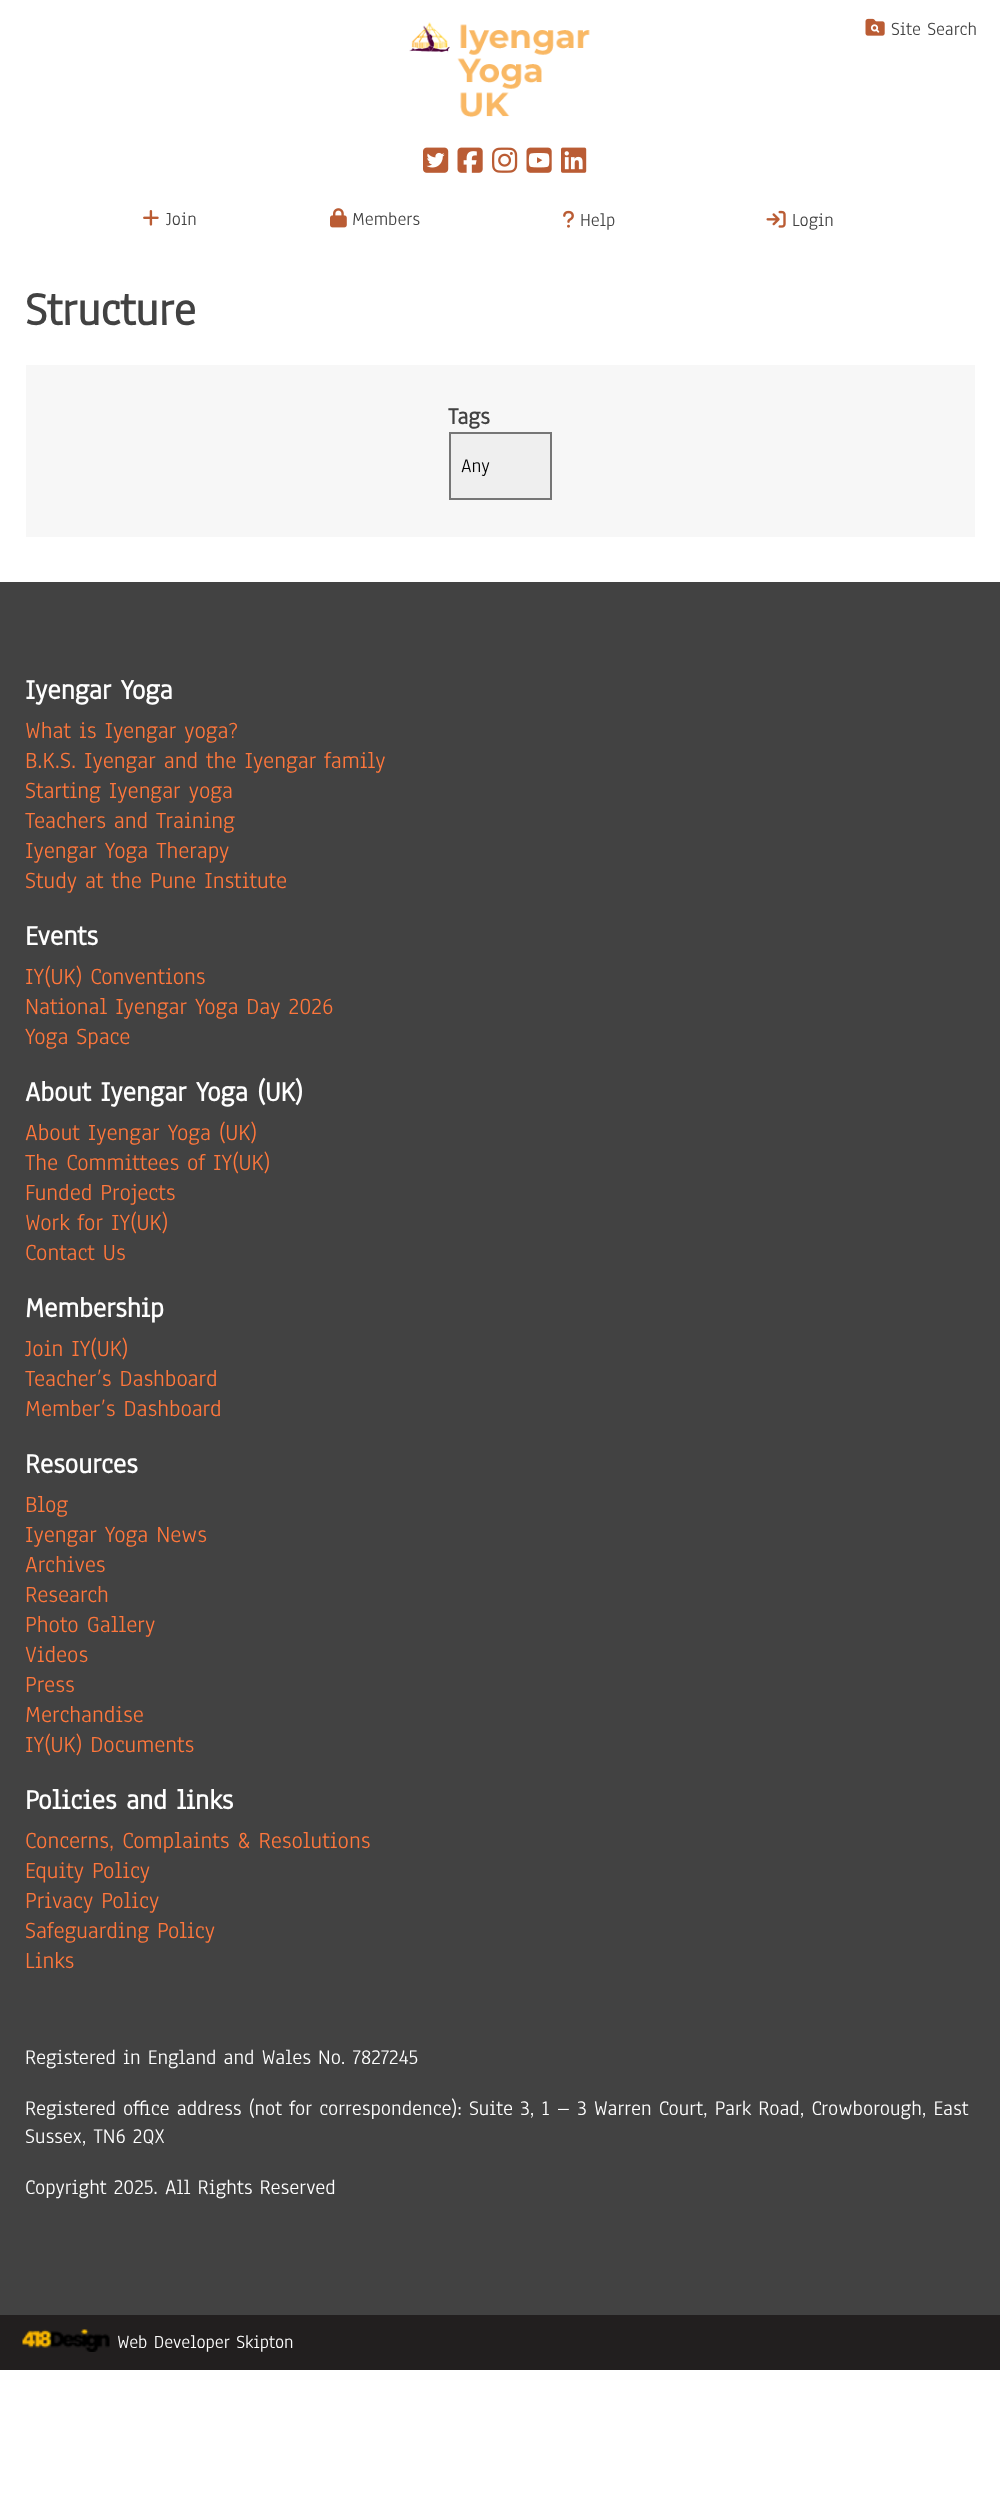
<svg xmlns="http://www.w3.org/2000/svg" width="1000" height="2501" viewBox="0 0 1000 2501">
  <rect width="100%" height="100%" fill="#ffffff"/>
  <image x="865" y="18" width="20" height="18" href="img1.png"/>
  <text x="891" y="35" font-family="Anaheim" font-size="19.25" fill="#424242">Site Search</text>
  <image x="423" y="147" width="26" height="26" href="img2.png"/>
  <image x="457" y="147" width="26" height="26" href="img3.png"/>
  <image x="492" y="147" width="26" height="26" href="img4.png"/>
  <image x="526" y="147" width="26" height="26" href="img5.png"/>
  <image x="561" y="147" width="26" height="26" href="img6.png"/>
  <image x="143" y="210" width="16" height="16" href="img7.png"/>
  <text x="166" y="225" font-family="Anaheim" font-size="19.25" fill="#424242">Join</text>
  <image x="330" y="208" width="17" height="20" href="img8.png"/>
  <text x="352" y="225" font-family="Anaheim" font-size="19.25" fill="#424242">Members</text>
  <image x="563" y="210" width="11" height="18" href="img9.png"/>
  <text x="580" y="226" font-family="Anaheim" font-size="19.25" fill="#424242">Help</text>
  <image x="766" y="210" width="20" height="18" href="img10.png"/>
  <text x="792" y="226" font-family="Anaheim" font-size="19.25" fill="#424242">Login</text>
  <image x="409" y="22" width="181" height="95" href="img11.png"/>
  <text x="25" y="325" font-family="Anaheim" font-size="48" font-weight="bold" fill="#424242">Structure</text>
  <rect x="26" y="365" width="949" height="172" fill="#f7f7f7"/>
  <text x="448" y="424" font-family="Anaheim" font-size="24" font-weight="bold" fill="#424242">Tags</text>
  <rect x="450" y="433" width="101" height="66" fill="#efefef" stroke="#767676" stroke-width="2"/>
  <text x="461" y="472" font-family="Anaheim" font-size="20" fill="#000000">Any</text>
  <rect x="0" y="582" width="1000" height="1733" fill="#424242"/>
  <text x="25" y="699" font-family="Anaheim" font-size="28.75" font-weight="bold" fill="#ffffff">Iyengar Yoga</text>
  <text x="25" y="738" font-family="Anaheim" font-size="24" fill="#ff773c">What is Iyengar yoga?</text>
  <text x="25" y="768" font-family="Anaheim" font-size="24" fill="#ff773c">B.K.S. Iyengar and the Iyengar family</text>
  <text x="25" y="798" font-family="Anaheim" font-size="24" fill="#ff773c">Starting Iyengar yoga</text>
  <text x="25" y="828" font-family="Anaheim" font-size="24" fill="#ff773c">Teachers and Training</text>
  <text x="25" y="858" font-family="Anaheim" font-size="24" fill="#ff773c">Iyengar Yoga Therapy</text>
  <text x="25" y="888" font-family="Anaheim" font-size="24" fill="#ff773c">Study at the Pune Institute</text>
  <text x="25" y="945" font-family="Anaheim" font-size="28.75" font-weight="bold" fill="#ffffff">Events</text>
  <text x="25" y="984" font-family="Anaheim" font-size="24" fill="#ff773c">IY(UK) Conventions</text>
  <text x="25" y="1014" font-family="Anaheim" font-size="24" fill="#ff773c">National Iyengar Yoga Day 2026</text>
  <text x="25" y="1044" font-family="Anaheim" font-size="24" fill="#ff773c">Yoga Space</text>
  <text x="25" y="1101" font-family="Anaheim" font-size="28.75" font-weight="bold" fill="#ffffff">About Iyengar Yoga (UK)</text>
  <text x="25" y="1140" font-family="Anaheim" font-size="24" fill="#ff773c">About Iyengar Yoga (UK)</text>
  <text x="25" y="1170" font-family="Anaheim" font-size="24" fill="#ff773c">The Committees of IY(UK)</text>
  <text x="25" y="1200" font-family="Anaheim" font-size="24" fill="#ff773c">Funded Projects</text>
  <text x="25" y="1230" font-family="Anaheim" font-size="24" fill="#ff773c">Work for IY(UK)</text>
  <text x="25" y="1260" font-family="Anaheim" font-size="24" fill="#ff773c">Contact Us</text>
  <text x="25" y="1317" font-family="Anaheim" font-size="28.75" font-weight="bold" fill="#ffffff">Membership</text>
  <text x="25" y="1356" font-family="Anaheim" font-size="24" fill="#ff773c">Join IY(UK)</text>
  <text x="25" y="1386" font-family="Anaheim" font-size="24" fill="#ff773c">Teacher’s Dashboard</text>
  <text x="25" y="1416" font-family="Anaheim" font-size="24" fill="#ff773c">Member’s Dashboard</text>
  <text x="25" y="1473" font-family="Anaheim" font-size="28.75" font-weight="bold" fill="#ffffff">Resources</text>
  <text x="25" y="1512" font-family="Anaheim" font-size="24" fill="#ff773c">Blog</text>
  <text x="25" y="1542" font-family="Anaheim" font-size="24" fill="#ff773c">Iyengar Yoga News</text>
  <text x="25" y="1572" font-family="Anaheim" font-size="24" fill="#ff773c">Archives</text>
  <text x="25" y="1602" font-family="Anaheim" font-size="24" fill="#ff773c">Research</text>
  <text x="25" y="1632" font-family="Anaheim" font-size="24" fill="#ff773c">Photo Gallery</text>
  <text x="25" y="1662" font-family="Anaheim" font-size="24" fill="#ff773c">Videos</text>
  <text x="25" y="1692" font-family="Anaheim" font-size="24" fill="#ff773c">Press</text>
  <text x="25" y="1722" font-family="Anaheim" font-size="24" fill="#ff773c">Merchandise</text>
  <text x="25" y="1752" font-family="Anaheim" font-size="24" fill="#ff773c">IY(UK) Documents</text>
  <text x="25" y="1809" font-family="Anaheim" font-size="28.75" font-weight="bold" fill="#ffffff">Policies and links</text>
  <text x="25" y="1848" font-family="Anaheim" font-size="24" fill="#ff773c">Concerns, Complaints &amp; Resolutions</text>
  <text x="25" y="1878" font-family="Anaheim" font-size="24" fill="#ff773c">Equity Policy</text>
  <text x="25" y="1908" font-family="Anaheim" font-size="24" fill="#ff773c">Privacy Policy</text>
  <text x="25" y="1938" font-family="Anaheim" font-size="24" fill="#ff773c">Safeguarding Policy</text>
  <text x="25" y="1968" font-family="Anaheim" font-size="24" fill="#ff773c">Links</text>
  <text x="25" y="2064" font-family="Anaheim" font-size="21.6" fill="#ffffff">Registered in England and Wales No. 7827245</text>
  <text x="25" y="2115" font-family="Anaheim" font-size="21.6" fill="#ffffff">Registered office address (not for correspondence): Suite 3, 1 – 3 Warren Court, Park Road, Crowborough, East</text>
  <text x="25" y="2143" font-family="Anaheim" font-size="21.6" fill="#ffffff">Sussex, TN6 2QX</text>
  <text x="25" y="2194" font-family="Anaheim" font-size="21.6" fill="#ffffff">Copyright 2025. All Rights Reserved</text>
  <rect x="0" y="2315" width="1000" height="55" fill="#221f1f"/>
  <image x="22" y="2329" width="88" height="23" href="img12.png"/>
  <text x="117" y="2348" font-family="Anaheim" font-size="19.25" fill="#ffffff">Web Developer Skipton</text>
</svg>
